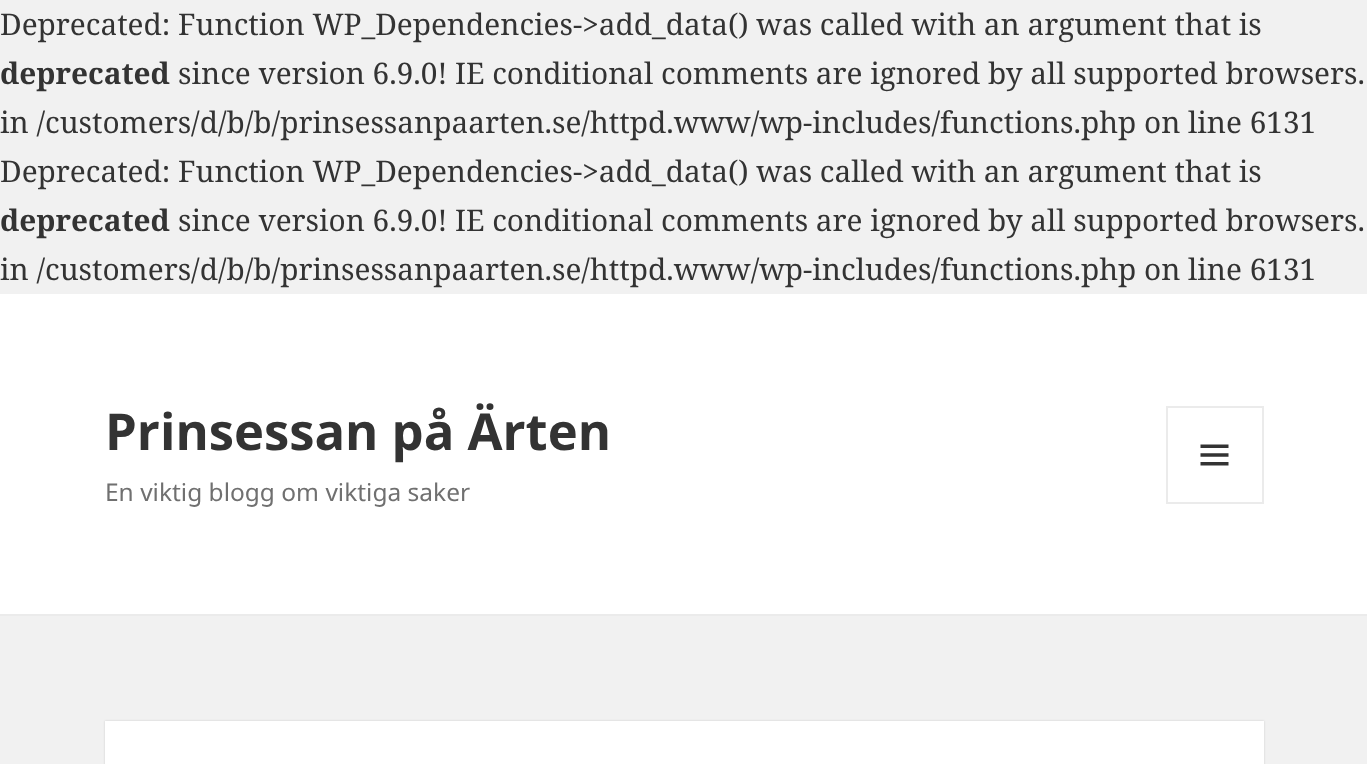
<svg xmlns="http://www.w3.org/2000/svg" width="1367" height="764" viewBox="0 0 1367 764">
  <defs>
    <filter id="blur1" x="-50%" y="-200%" width="200%" height="500%"><feGaussianBlur stdDeviation="1"/></filter>
  </defs>
  <rect width="100%" height="100%" fill="#f1f1f1"/>
  <text x="0" y="35" font-family="Noto Serif" font-size="29.75" fill="#333333">Deprecated: Function WP_Dependencies-&gt;add_data() was called with an argument that is</text>
  <text x="0" y="84" font-family="Noto Serif" font-size="29.75" font-weight="bold" fill="#333333">deprecated</text>
  <text x="178" y="84" font-family="Noto Serif" font-size="29.75" fill="#333333">since version 6.9.0! IE conditional comments are ignored by all supported browsers.</text>
  <text x="0" y="133" font-family="Noto Serif" font-size="29.75" fill="#333333">in /customers/d/b/b/prinsessanpaarten.se/httpd.www/wp-includes/functions.php on line 6131</text>
  <text x="0" y="182" font-family="Noto Serif" font-size="29.75" fill="#333333">Deprecated: Function WP_Dependencies-&gt;add_data() was called with an argument that is</text>
  <text x="0" y="231" font-family="Noto Serif" font-size="29.75" font-weight="bold" fill="#333333">deprecated</text>
  <text x="178" y="231" font-family="Noto Serif" font-size="29.75" fill="#333333">since version 6.9.0! IE conditional comments are ignored by all supported browsers.</text>
  <text x="0" y="280" font-family="Noto Serif" font-size="29.75" fill="#333333">in /customers/d/b/b/prinsessanpaarten.se/httpd.www/wp-includes/functions.php on line 6131</text>
  <rect x="0" y="294" width="1367" height="320" fill="#ffffff"/>
  <rect x="0" y="614" width="1367" height="2" fill="#ebebeb"/>
  <text x="105" y="450" font-family="Noto Sans" font-size="50.75" font-weight="bold" fill="#333333">Prinsessan på Ärten</text>
  <rect x="1167" y="407" width="96" height="96" fill="none" stroke="#ebebeb" stroke-width="2"/>
  <image x="1200" y="444" width="29" height="22" href="img1.png"/>
  <text x="105" y="501" font-family="Noto Sans" font-size="24.5" fill="#707070">En viktig blogg om viktiga saker</text>
  <rect x="105" y="721" width="1159" height="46" fill="#000000" fill-opacity="0.15" filter="url(#blur1)"/>
  <rect x="105" y="721" width="1159" height="43" fill="#ffffff"/>
</svg>
